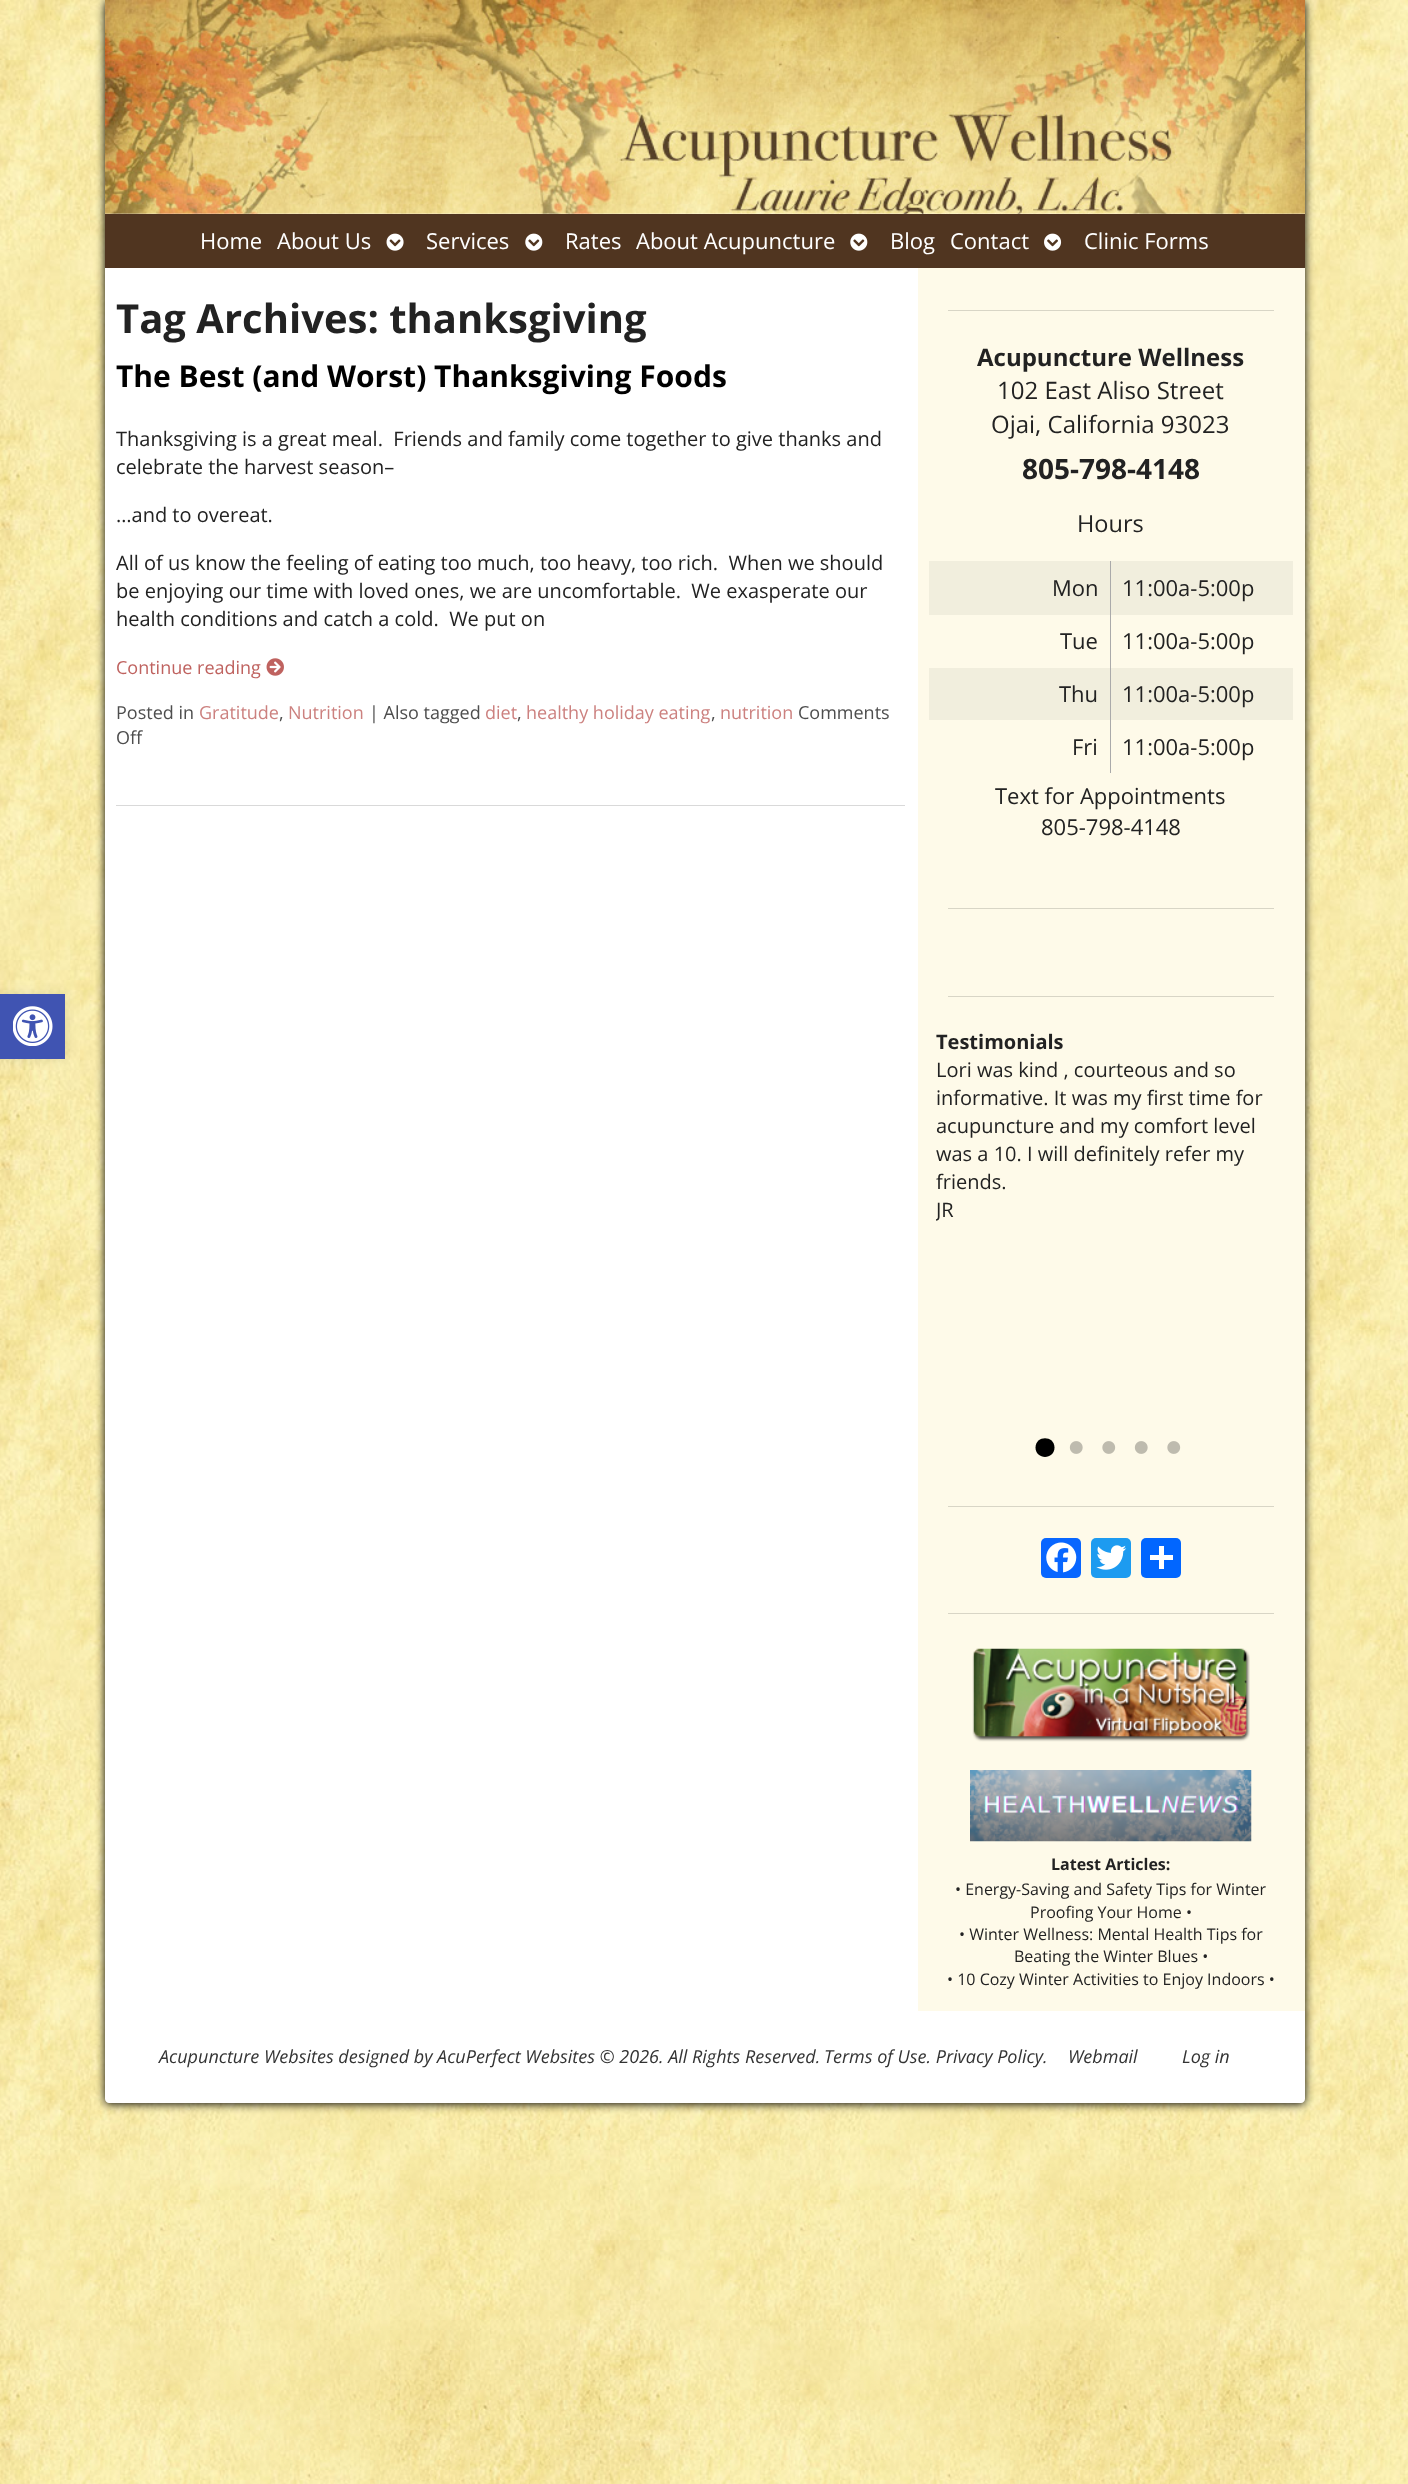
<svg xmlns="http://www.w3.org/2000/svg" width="1408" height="2484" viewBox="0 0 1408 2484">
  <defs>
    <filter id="blur1" x="-50%" y="-200%" width="200%" height="500%"><feGaussianBlur stdDeviation="6"/></filter>
    <filter id="blur2" x="-50%" y="-200%" width="200%" height="500%"><feGaussianBlur stdDeviation="5"/></filter>
    <clipPath id="clip1"><rect x="936" y="1056" width="349" height="168"/></clipPath>
  </defs>
  <rect width="100%" height="100%" fill="#ffffff"/>
  <image x="0" y="0" width="1408" height="2484" href="img1.png"/>
  <rect x="0" y="994" width="65" height="65" fill="#000000" fill-opacity="0.1" filter="url(#blur1)"/>
  <rect x="0" y="994" width="65" height="65" fill="#4054b2"/>
  <image x="13" y="1006" width="40" height="40" href="img2.png"/>
  <rect x="105" y="1" width="1200" height="2103" rx="4" fill="#000000" filter="url(#blur2)"/>
  <path d="M105 0H1305V2099C1305 2101 1303 2103 1301 2103H109C107 2103 105 2101 105 2099Z" fill="#ffffff"/>
  <image x="105" y="0" width="1200" height="214" href="img3.png"/>
  <rect x="105" y="214" width="1200" height="54" fill="#503520"/>
  <text x="200" y="249" font-family="Open Sans" font-size="22" fill="#ffffff">Home</text>
  <text x="277" y="249" font-family="Open Sans" font-size="22" fill="#ffffff">About Us</text>
  <image x="386" y="233" width="18" height="18" href="img4.png"/>
  <text x="426" y="249" font-family="Open Sans" font-size="22" fill="#ffffff">Services</text>
  <image x="525" y="233" width="18" height="18" href="img5.png"/>
  <text x="565" y="249" font-family="Open Sans" font-size="22" fill="#ffffff">Rates</text>
  <text x="636" y="249" font-family="Open Sans" font-size="22" fill="#ffffff">About Acupuncture</text>
  <image x="850" y="233" width="18" height="18" href="img5.png"/>
  <text x="890" y="249" font-family="Open Sans" font-size="22" fill="#ffffff">Blog</text>
  <text x="950" y="249" font-family="Open Sans" font-size="22" fill="#ffffff">Contact</text>
  <image x="1044" y="233" width="18" height="18" href="img6.png"/>
  <text x="1084" y="249" font-family="Open Sans" font-size="22" fill="#ffffff">Clinic Forms</text>
  <text x="116" y="333" font-family="Open Sans" font-size="40" font-weight="bold" fill="#222222">Tag Archives: thanksgiving</text>
  <rect x="116" y="805" width="789" height="1" fill="#d9d9d9"/>
  <text x="116" y="387" font-family="Open Sans" font-size="30" font-weight="bold" fill="#000000">The Best (and Worst) Thanksgiving Foods</text>
  <text x="116" y="446" font-family="Open Sans" font-size="20" fill="#222222" xml:space="preserve">Thanksgiving is a great meal.  Friends and family come together to give thanks and</text>
  <text x="116" y="474" font-family="Open Sans" font-size="20" fill="#222222">celebrate the harvest season–</text>
  <text x="116" y="522" font-family="Open Sans" font-size="20" fill="#222222">…and to overeat.</text>
  <text x="116" y="570" font-family="Open Sans" font-size="20" fill="#222222" xml:space="preserve">All of us know the feeling of eating too much, too heavy, too rich.  When we should</text>
  <text x="116" y="598" font-family="Open Sans" font-size="20" fill="#222222" xml:space="preserve">be enjoying our time with loved ones, we are uncomfortable.  We exasperate our</text>
  <text x="116" y="626" font-family="Open Sans" font-size="20" fill="#222222" xml:space="preserve">health conditions and catch a cold.  We put on</text>
  <text x="116" y="674" font-family="Open Sans" font-size="18" fill="#bf625f">Continue reading</text>
  <image x="266" y="658" width="18" height="18" href="img7.png"/>
  <text x="116" y="719" font-family="Open Sans" font-size="18" fill="#4e4e4e">Posted in</text>
  <text x="199" y="719" font-family="Open Sans" font-size="18" fill="#cc817f">Gratitude</text>
  <text x="279" y="719" font-family="Open Sans" font-size="18" fill="#4e4e4e">,</text>
  <text x="288" y="719" font-family="Open Sans" font-size="18" fill="#cc817f">Nutrition</text>
  <text x="369" y="719" font-family="Open Sans" font-size="18" fill="#4e4e4e">| Also tagged</text>
  <text x="485" y="719" font-family="Open Sans" font-size="18" fill="#cc817f">diet</text>
  <text x="517" y="719" font-family="Open Sans" font-size="18" fill="#4e4e4e">,</text>
  <text x="526" y="719" font-family="Open Sans" font-size="18" fill="#cc817f">healthy holiday eating</text>
  <text x="711" y="719" font-family="Open Sans" font-size="18" fill="#4e4e4e">,</text>
  <text x="720" y="719" font-family="Open Sans" font-size="18" fill="#cc817f">nutrition</text>
  <text x="798" y="719" font-family="Open Sans" font-size="18" fill="#4e4e4e">Comments</text>
  <text x="116" y="744" font-family="Open Sans" font-size="18" fill="#4e4e4e">Off</text>
  <rect x="918" y="268" width="387" height="1743" fill="#fefae9"/>
  <rect x="948" y="310" width="326" height="1" fill="#d8d5c6"/>
  <text x="977" y="366" font-family="Open Sans" font-size="24" font-weight="bold" fill="#222222">Acupuncture Wellness</text>
  <text x="997" y="399" font-family="Open Sans" font-size="24" fill="#222222">102 East Aliso Street</text>
  <text x="991" y="433" font-family="Open Sans" font-size="24" fill="#222222">Ojai, California 93023</text>
  <text x="1022" y="479" font-family="Open Sans" font-size="28" font-weight="bold" fill="#222222">805-798-4148</text>
  <text x="1077" y="532" font-family="Open Sans" font-size="23.5" fill="#222222">Hours</text>
  <rect x="929" y="561" width="364" height="54" fill="#f1eedd"/>
  <rect x="929" y="668" width="364" height="52" fill="#f1eedd"/>
  <rect x="1110" y="561" width="1" height="212" fill="#aaaaaa"/>
  <text x="1052" y="596" font-family="Open Sans" font-size="22" fill="#222222">Mon</text>
  <text x="1122" y="596" font-family="Open Sans" font-size="22" fill="#222222">11:00a-5:00p</text>
  <text x="1060" y="649" font-family="Open Sans" font-size="22" fill="#222222">Tue</text>
  <text x="1122" y="649" font-family="Open Sans" font-size="22" fill="#222222">11:00a-5:00p</text>
  <text x="1059" y="702" font-family="Open Sans" font-size="22" fill="#222222">Thu</text>
  <text x="1122" y="702" font-family="Open Sans" font-size="22" fill="#222222">11:00a-5:00p</text>
  <text x="1072" y="755" font-family="Open Sans" font-size="22" fill="#222222">Fri</text>
  <text x="1122" y="755" font-family="Open Sans" font-size="22" fill="#222222">11:00a-5:00p</text>
  <text x="995" y="804" font-family="Open Sans" font-size="22" fill="#222222">Text for Appointments</text>
  <text x="1041" y="835" font-family="Open Sans" font-size="22" fill="#222222">805-798-4148</text>
  <rect x="948" y="908" width="326" height="1" fill="#d8d5c6"/>
  <rect x="948" y="996" width="326" height="1" fill="#d8d5c6"/>
  <text x="936" y="1049" font-family="Open Sans" font-size="20" font-weight="bold" fill="#222222">Testimonials</text>
  <text x="936" y="1077" font-family="Open Sans" font-size="20" fill="#222222">Lori was kind , courteous and so</text>
  <text x="936" y="1105" font-family="Open Sans" font-size="20" fill="#222222">informative. It was my first time for</text>
  <text x="936" y="1133" font-family="Open Sans" font-size="20" fill="#222222">acupuncture and my comfort level</text>
  <text x="936" y="1161" font-family="Open Sans" font-size="20" fill="#222222">was a 10. I will definitely refer my</text>
  <text x="936" y="1189" font-family="Open Sans" font-size="20" fill="#222222">friends.</text>
  <g clip-path="url(#clip1)">
    <text x="936" y="1217" font-family="Open Sans" font-size="20" fill="#222222">JR</text>
  </g>
  <path d="M1054.5 1447.5C1054.5 1435 1035.5 1435 1035.5 1447.5C1035.5 1460 1054.5 1460 1054.5 1447.5Z" fill="#000000"/>
  <image x="1069" y="1441" width="14" height="13" href="img8.png"/>
  <image x="1102" y="1441" width="14" height="13" href="img9.png"/>
  <image x="1134" y="1441" width="14" height="13" href="img8.png"/>
  <image x="1167" y="1441" width="14" height="13" href="img9.png"/>
  <rect x="948" y="1506" width="326" height="1" fill="#d8d5c6"/>
  <rect x="1041" y="1538" width="40" height="40" rx="5" fill="#0866ff"/>
  <image x="1046" y="1542" width="31" height="31" href="img10.png"/>
  <rect x="1091" y="1538" width="40" height="40" rx="5" fill="#1d9bf0"/>
  <image x="1096" y="1545" width="31" height="25" href="img11.png"/>
  <rect x="1141" y="1538" width="40" height="40" rx="5" fill="#0166ff"/>
  <rect x="1159" y="1546" width="5" height="23" fill="#ffffff"/>
  <rect x="1150" y="1555" width="23" height="5" fill="#ffffff"/>
  <rect x="948" y="1613" width="326" height="1" fill="#d8d5c6"/>
  <image x="972" y="1648" width="278" height="94" href="img12.png"/>
  <image x="970" y="1770" width="282" height="72" href="img13.png"/>
  <text x="1051" y="1870" font-family="Open Sans" font-size="16" font-weight="bold" fill="#222222">Latest Articles:</text>
  <text x="955" y="1895" font-family="Open Sans" font-size="16" fill="#222222">• Energy-Saving and Safety Tips for Winter</text>
  <text x="1030" y="1918" font-family="Open Sans" font-size="16" fill="#222222">Proofing Your Home •</text>
  <text x="959" y="1940" font-family="Open Sans" font-size="16" fill="#222222">• Winter Wellness: Mental Health Tips for</text>
  <text x="1014" y="1962" font-family="Open Sans" font-size="16" fill="#222222">Beating the Winter Blues •</text>
  <text x="947" y="1985" font-family="Open Sans" font-size="16" fill="#222222">• 10 Cozy Winter Activities to Enjoy Indoors •</text>
  <text x="159" y="2063" font-family="Open Sans" font-size="18" font-style="italic" fill="#333333">Acupuncture Websites designed by AcuPerfect Websites © 2026. All Rights Reserved.</text>
  <text x="824" y="2063" font-family="Open Sans" font-size="18" font-style="italic" fill="#333333">Terms of Use. Privacy Policy.</text>
  <text x="1068" y="2063" font-family="Open Sans" font-size="18" font-style="italic" fill="#333333">Webmail</text>
  <text x="1182" y="2063" font-family="Open Sans" font-size="18" font-style="italic" fill="#333333">Log in</text>
</svg>
